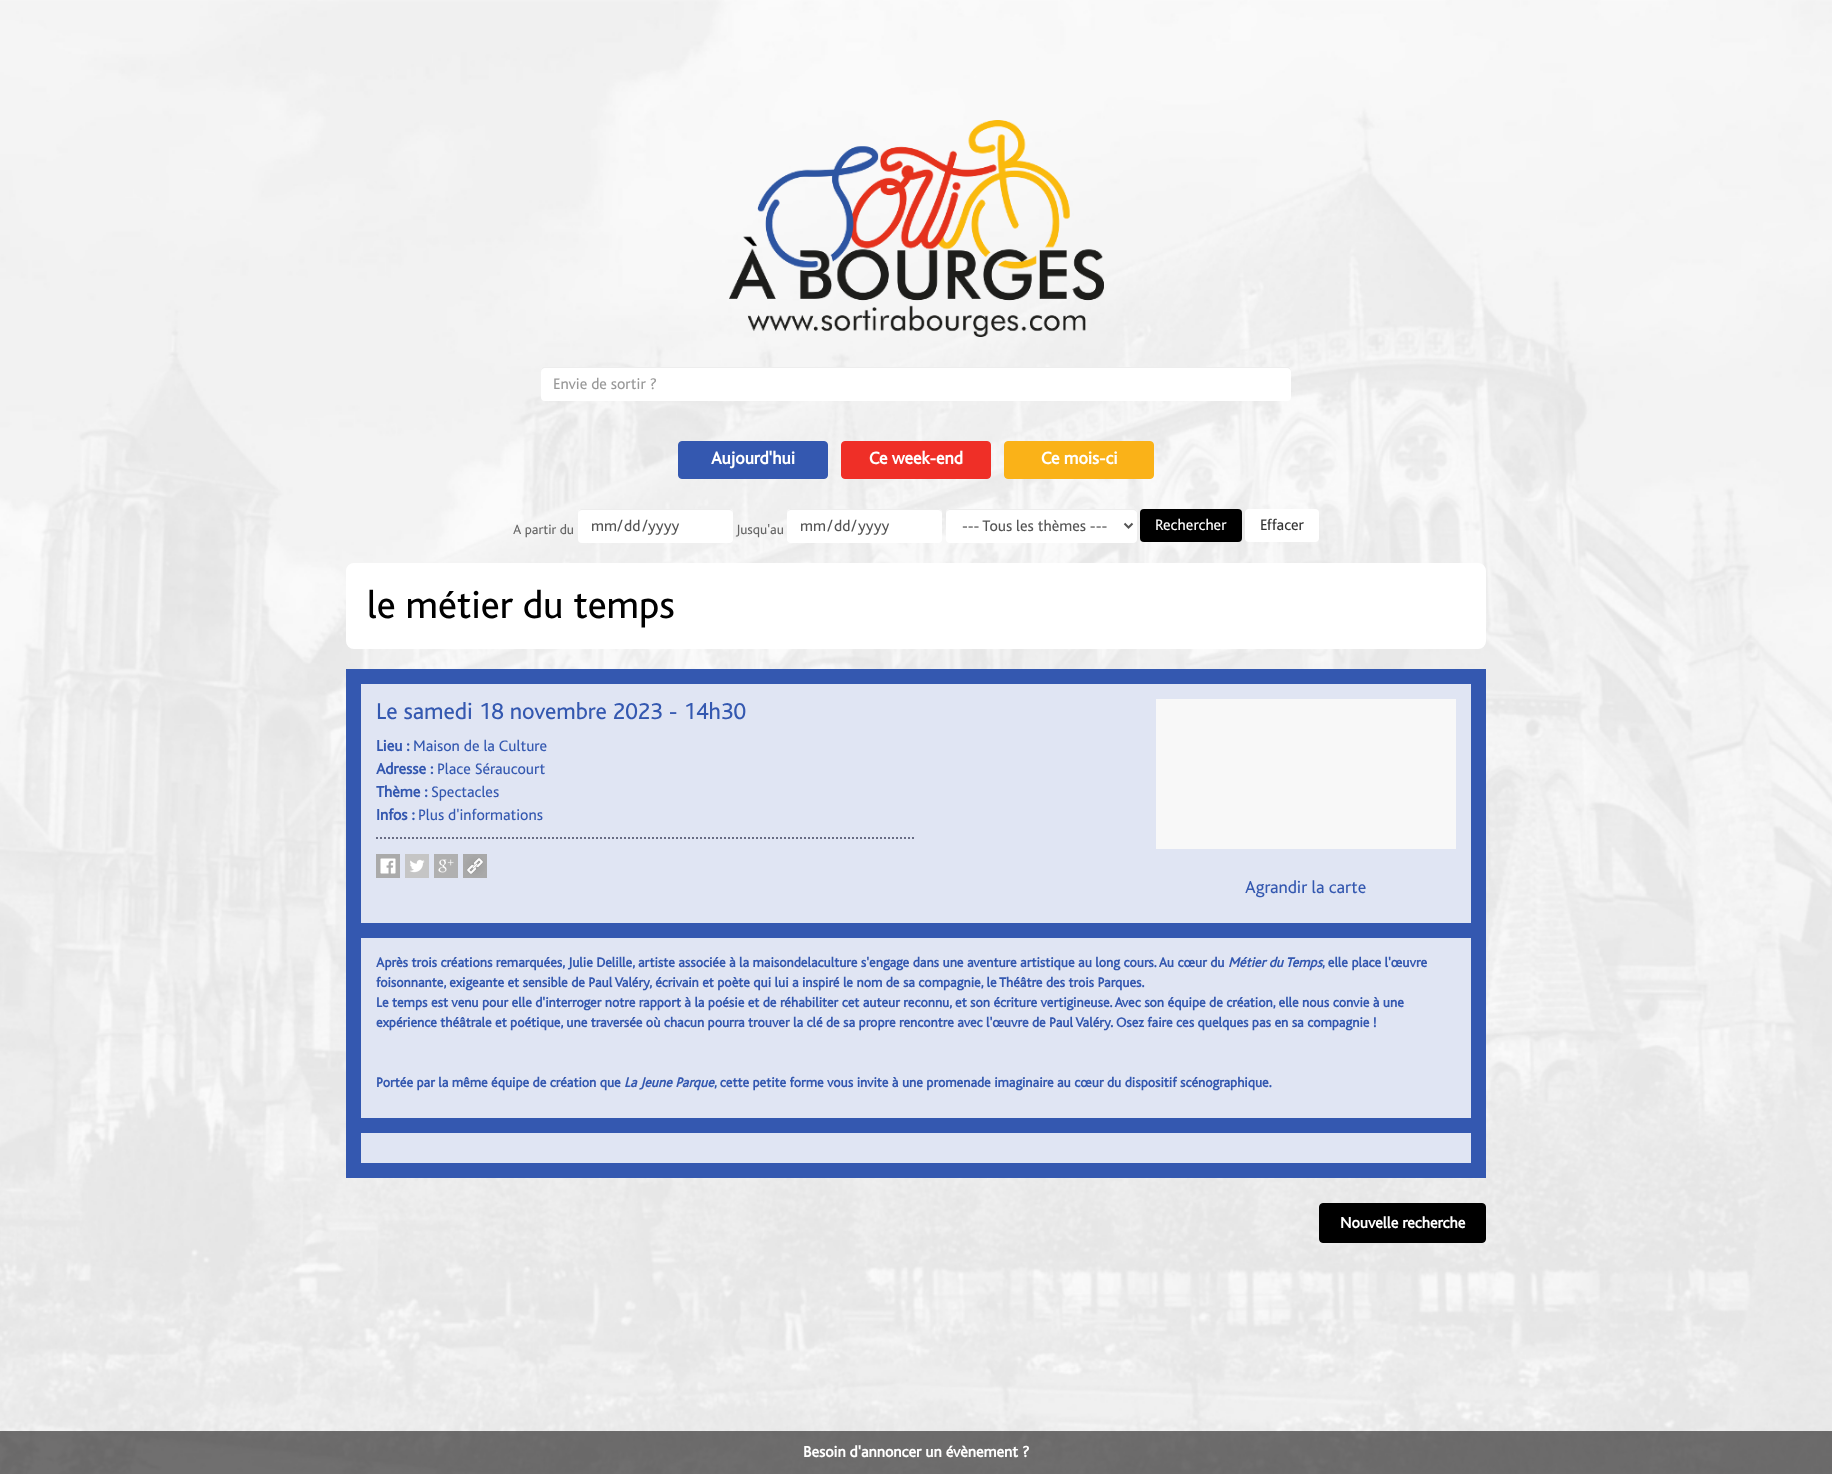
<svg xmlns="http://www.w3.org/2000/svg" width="1832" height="1474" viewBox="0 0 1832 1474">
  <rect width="100%" height="100%" fill="#ffffff"/>
  <image x="0" y="0" width="1832" height="1474" href="img1.png"/>
  <image x="729" y="120" width="375" height="217" href="img2.png"/>
  <rect x="541" y="367" width="750" height="34" rx="4" fill="#ffffff"/>
  <path d="M545 368H1287C1289 368 1291 370 1291 372C1291 369 1290 367 1287 367H545C542 367 541 369 541 372C541 370 543 368 545 368Z" fill="#000000" fill-opacity="0.07"/>
  <text x="553" y="389" font-family="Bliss" font-size="16" fill="#999999">Envie de sortir ?</text>
  <rect x="678.5" y="441.5" width="149" height="37" rx="3.5" fill="#3458b0" stroke="#3458b0"/>
  <text x="711" y="464" font-family="Bliss" font-size="18" font-weight="bold" fill="#ffffff">Aujourd'hui</text>
  <rect x="841.5" y="441.5" width="149" height="37" rx="3.5" fill="#ef2f27" stroke="#ef2f27"/>
  <text x="869" y="464" font-family="Bliss" font-size="18" font-weight="bold" fill="#ffffff">Ce week-end</text>
  <rect x="1004.5" y="441.5" width="149" height="37" rx="3.5" fill="#fab218" stroke="#fab218"/>
  <text x="1041" y="464" font-family="Bliss" font-size="18" font-weight="bold" fill="#ffffff">Ce mois-ci</text>
  <text x="513" y="534" font-family="Bliss" font-size="14" fill="#666666">A partir du</text>
  <rect x="578" y="509" width="155" height="34" rx="4" fill="#ffffff"/>
  <path d="M582 510H729C731 510 733 512 733 514C733 512 732 510 730 509H581C579 510 578 512 578 514C578 512 580 510 582 510Z" fill="#000000" fill-opacity="0.07"/>
  <text x="591" y="531" font-family="Bliss" font-size="16" fill="#555555">mm</text>
  <text x="617" y="531" font-family="Bliss" font-size="16" fill="#555555">/</text>
  <text x="624" y="531" font-family="Bliss" font-size="16" fill="#555555">dd</text>
  <text x="642" y="531" font-family="Bliss" font-size="16" fill="#555555">/</text>
  <text x="648" y="531" font-family="Bliss" font-size="16" fill="#555555">yyyy</text>
  <text x="736" y="534" font-family="Bliss" font-size="14" fill="#666666">Jusqu'au</text>
  <rect x="787" y="509" width="155" height="34" rx="4" fill="#ffffff"/>
  <path d="M791 510H938C940 510 942 512 942 514C942 512 941 510 939 509H790C788 510 787 512 787 514C787 512 789 510 791 510Z" fill="#000000" fill-opacity="0.07"/>
  <text x="800" y="531" font-family="Bliss" font-size="16" fill="#555555">mm</text>
  <text x="827" y="531" font-family="Bliss" font-size="16" fill="#555555">/</text>
  <text x="834" y="531" font-family="Bliss" font-size="16" fill="#555555">dd</text>
  <text x="851" y="531" font-family="Bliss" font-size="16" fill="#555555">/</text>
  <text x="858" y="531" font-family="Bliss" font-size="16" fill="#555555">yyyy</text>
  <rect x="946" y="509" width="191" height="34" rx="4" fill="#ffffff"/>
  <path d="M950 510H1133C1135 510 1137 512 1137 514C1137 511 1136 509 1133 509H949C947 510 946 512 946 514C946 512 948 510 950 510Z" fill="#000000" fill-opacity="0.07"/>
  <path d="M1124.5 523.5L1128.5 527.5L1132.5 523.5" fill="none" stroke="#555555" stroke-width="2"/>
  <text x="962" y="531" font-family="Bliss" font-size="16" fill="#555555">--- Tous les thèmes ---</text>
  <rect x="1140" y="509" width="102" height="33" rx="4" fill="#000000"/>
  <text x="1155" y="530" font-family="Bliss" font-size="16" fill="#ffffff">Rechercher</text>
  <rect x="1245" y="509" width="74" height="33" rx="4" fill="#ffffff"/>
  <text x="1260" y="530" font-family="Bliss" font-size="16" fill="#333333">Effacer</text>
  <rect x="347" y="564" width="1138" height="84" rx="7" fill="#ffffff" stroke="#ffffff" stroke-width="2"/>
  <text x="367" y="618" font-family="Bliss" font-size="40" fill="#000000">le métier du temps</text>
  <rect x="346" y="669" width="1140" height="509" fill="#3458b0"/>
  <rect x="361" y="684" width="1110" height="239" fill="#e0e5f3"/>
  <text x="376" y="719" font-family="Bliss" font-size="24" fill="#3458b0">Le samedi 18 novembre 2023 - 14h30</text>
  <text x="376" y="751" font-family="Bliss" font-size="16" font-weight="bold" fill="#3458b0">Lieu :</text>
  <text x="413" y="751" font-family="Bliss" font-size="16" fill="#3458b0">Maison de la Culture</text>
  <text x="376" y="774" font-family="Bliss" font-size="16" font-weight="bold" fill="#3458b0">Adresse :</text>
  <text x="437" y="774" font-family="Bliss" font-size="16" fill="#3458b0">Place Séraucourt</text>
  <text x="376" y="797" font-family="Bliss" font-size="16" font-weight="bold" fill="#3458b0">Thème :</text>
  <text x="431" y="797" font-family="Bliss" font-size="16" fill="#3458b0">Spectacles</text>
  <text x="376" y="820" font-family="Bliss" font-size="16" font-weight="bold" fill="#3458b0">Infos :</text>
  <text x="418" y="820" font-family="Bliss" font-size="16" fill="#3458b0">Plus d'informations</text>
  <path d="M376 838H916" fill="none" stroke="#696d84" stroke-width="2" stroke-dasharray="2 2"/>
  <image x="376" y="854" width="24" height="24" href="img3.png"/>
  <image x="405" y="854" width="24" height="24" href="img4.png"/>
  <image x="434" y="854" width="24" height="24" href="img5.png"/>
  <image x="463" y="854" width="24" height="24" href="img6.png"/>
  <rect x="1156" y="699" width="300" height="150" fill="#f8f8f8"/>
  <text x="1245" y="893" font-family="Bliss" font-size="18" fill="#3458b0">Agrandir la carte</text>
  <rect x="361" y="938" width="1110" height="180" fill="#e0e5f3"/>
  <text x="376" y="967" font-family="Bliss" font-size="14" font-weight="bold" fill="#3458b0">Après trois créations remarquées, Julie Delille, artiste associée à la maisondelaculture s'engage dans une aventure artistique au long cours. Au cœur du</text>
  <text x="1228" y="967" font-family="Bliss" font-size="14" font-weight="bold" font-style="italic" fill="#3458b0">Métier du Temps</text>
  <text x="1322" y="967" font-family="Bliss" font-size="14" font-weight="bold" fill="#3458b0">, elle place l'œuvre</text>
  <text x="376" y="987" font-family="Bliss" font-size="14" font-weight="bold" fill="#3458b0">foisonnante, exigeante et sensible de Paul Valéry, écrivain et poète qui lui a inspiré le nom de sa compagnie, le Théâtre des trois Parques.</text>
  <text x="376" y="1007" font-family="Bliss" font-size="14" font-weight="bold" fill="#3458b0">Le temps est venu pour elle d'interroger notre rapport à la poésie et de réhabiliter cet auteur reconnu, et son écriture vertigineuse. Avec son équipe de création, elle nous convie à une</text>
  <text x="376" y="1027" font-family="Bliss" font-size="14" font-weight="bold" fill="#3458b0">expérience théâtrale et poétique, une traversée où chacun pourra trouver la clé de sa propre rencontre avec l'œuvre de Paul Valéry. Osez faire ces quelques pas en sa compagnie !</text>
  <text x="376" y="1087" font-family="Bliss" font-size="14" font-weight="bold" fill="#3458b0">Portée par la même équipe de création que</text>
  <text x="624" y="1087" font-family="Bliss" font-size="14" font-weight="bold" font-style="italic" fill="#3458b0">La Jeune Parque</text>
  <text x="714" y="1087" font-family="Bliss" font-size="14" font-weight="bold" fill="#3458b0">, cette petite forme vous invite à une promenade imaginaire au cœur du dispositif scénographique.</text>
  <rect x="361" y="1133" width="1110" height="30" fill="#e0e5f3"/>
  <rect x="1319.5" y="1203.5" width="166" height="39" rx="3.5" fill="#000000" stroke="#000000"/>
  <text x="1340" y="1228" font-family="Bliss" font-size="16" font-weight="bold" fill="#ffffff">Nouvelle recherche</text>
  <rect x="0" y="1431" width="1832" height="43" fill="#171516" fill-opacity="0.6"/>
  <text x="803" y="1457" font-family="Bliss" font-size="16" font-weight="bold" fill="#ffffff">Besoin d'annoncer un évènement ?</text>
</svg>
